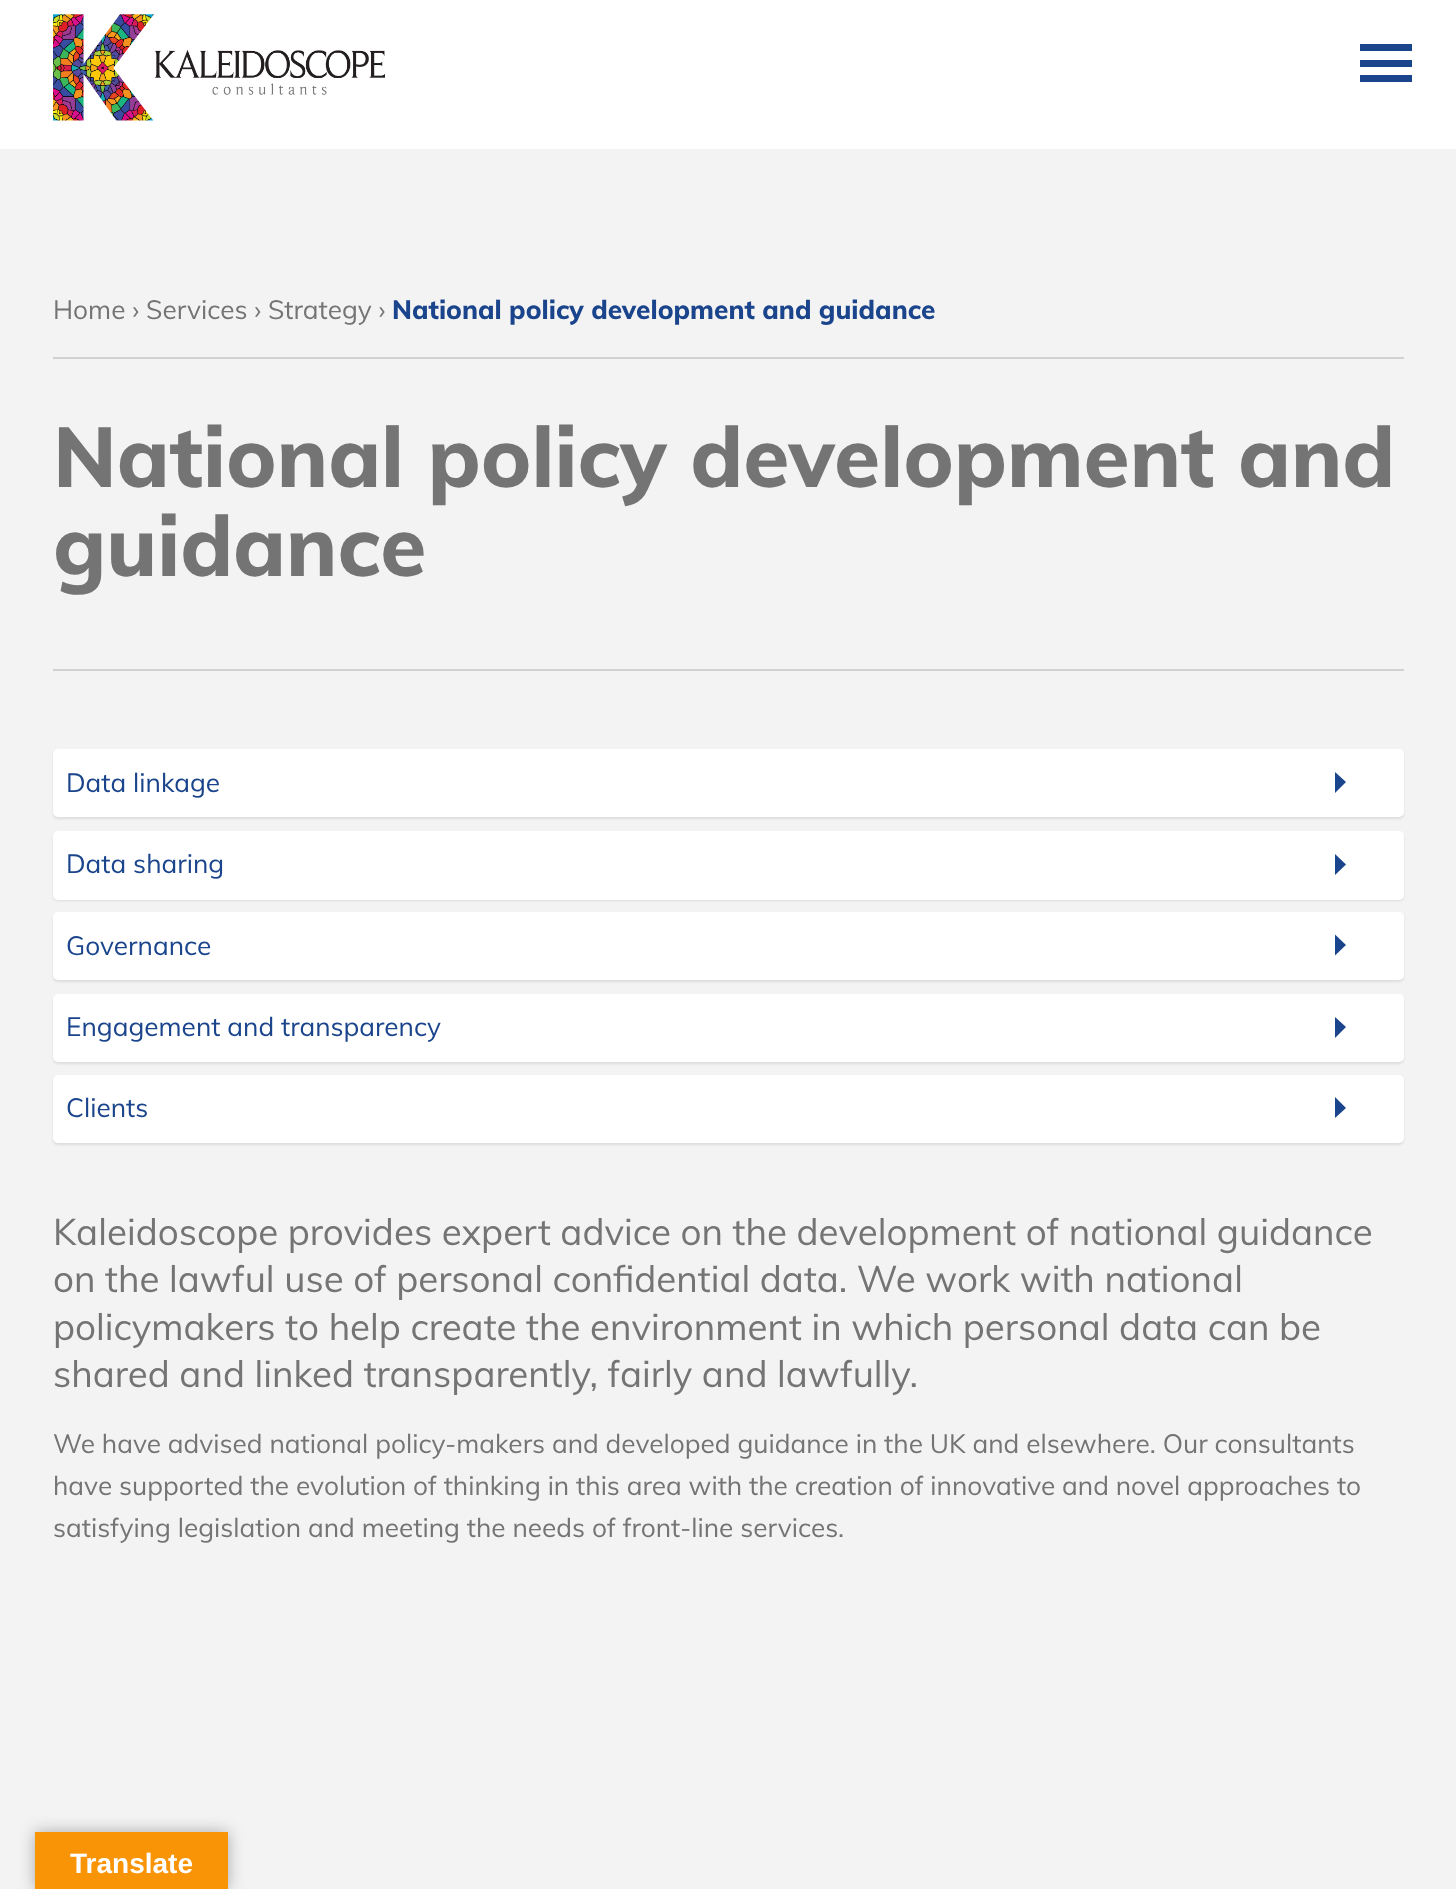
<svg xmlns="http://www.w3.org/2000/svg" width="1456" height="1889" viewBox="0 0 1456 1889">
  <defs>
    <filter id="blur1" x="-50%" y="-200%" width="200%" height="500%"><feGaussianBlur stdDeviation="1"/></filter>
    <filter id="blur2" x="-50%" y="-200%" width="200%" height="500%"><feGaussianBlur stdDeviation="8"/></filter>
  </defs>
  <rect width="100%" height="100%" fill="#f3f3f3"/>
  <rect x="0" y="0" width="1456" height="149" fill="#ffffff"/>
  <image x="53" y="14" width="332" height="107" href="img1.png"/>
  <rect x="1360" y="44" width="52" height="7" fill="#1a448b"/>
  <rect x="1360" y="60" width="52" height="7" fill="#1a448b"/>
  <rect x="1360" y="75" width="52" height="7" fill="#1a448b"/>
  <rect x="53" y="357" width="1351" height="2" fill="#d1d1d1"/>
  <text x="53" y="319" font-family="Muli" font-size="26.25" fill="#747474">Home › Services › Strategy ›</text>
  <text x="392" y="319" font-family="Muli" font-size="26.25" font-weight="800" fill="#1a448b">National policy development and guidance</text>
  <text x="53" y="487" font-family="Muli" font-size="84" font-weight="800" fill="#747474">National policy development and</text>
  <text x="53" y="576" font-family="Muli" font-size="84" font-weight="800" fill="#747474">guidance</text>
  <rect x="53" y="669" width="1351" height="2" fill="#d1d1d1"/>
  <rect x="53" y="751" width="1351" height="68" rx="5" fill="#dddddd" filter="url(#blur1)"/>
  <rect x="53" y="749" width="1351" height="68" rx="5" fill="#ffffff"/>
  <text x="66" y="792" font-family="Muli" font-size="26.25" fill="#1a448b">Data linkage</text>
  <path d="M1335 793V772L1346 782Z" fill="#1a448b"/>
  <rect x="53" y="833" width="1351" height="68" rx="5" fill="#dddddd" filter="url(#blur1)"/>
  <rect x="53" y="831" width="1351" height="69" rx="5" fill="#ffffff"/>
  <text x="66" y="873" font-family="Muli" font-size="26.25" fill="#1a448b">Data sharing</text>
  <path d="M1335 875V854L1346 864.5Z" fill="#1a448b"/>
  <rect x="53" y="914" width="1351" height="68" rx="5" fill="#dddddd" filter="url(#blur1)"/>
  <rect x="53" y="912" width="1351" height="68" rx="5" fill="#ffffff"/>
  <text x="66" y="955" font-family="Muli" font-size="26.25" fill="#1a448b">Governance</text>
  <path d="M1335 955.5V934.5L1346 945Z" fill="#1a448b"/>
  <rect x="53" y="996" width="1351" height="68" rx="5" fill="#dddddd" filter="url(#blur1)"/>
  <rect x="53" y="994" width="1351" height="68" rx="5" fill="#ffffff"/>
  <text x="66" y="1036" font-family="Muli" font-size="26.25" fill="#1a448b">Engagement and transparency</text>
  <path d="M1335 1038V1017L1346 1027Z" fill="#1a448b"/>
  <rect x="53" y="1076" width="1351" height="69" rx="5" fill="#dddddd" filter="url(#blur1)"/>
  <rect x="53" y="1075" width="1351" height="68" rx="5" fill="#ffffff"/>
  <text x="66" y="1117" font-family="Muli" font-size="26.25" fill="#1a448b">Clients</text>
  <path d="M1335 1118V1097L1346 1108Z" fill="#1a448b"/>
  <text x="53" y="1245" font-family="Muli" font-size="36.75" fill="#747474">Kaleidoscope provides expert advice on the development of national guidance</text>
  <text x="53" y="1292" font-family="Muli" font-size="36.75" fill="#747474">on the lawful use of personal confidential data. We work with national</text>
  <text x="53" y="1340" font-family="Muli" font-size="36.75" fill="#747474">policymakers to help create the environment in which personal data can be</text>
  <text x="53" y="1387" font-family="Muli" font-size="36.75" fill="#747474">shared and linked transparently, fairly and lawfully.</text>
  <text x="53" y="1453" font-family="Muli" font-size="26.25" fill="#747474">We have advised national policy-makers and developed guidance in the UK and elsewhere. Our consultants</text>
  <text x="53" y="1495" font-family="Muli" font-size="26.25" fill="#747474">have supported the evolution of thinking in this area with the creation of innovative and novel approaches to</text>
  <text x="53" y="1537" font-family="Muli" font-size="26.25" fill="#747474">satisfying legislation and meeting the needs of front-line services.</text>
  <rect x="35" y="1832" width="193" height="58" fill="#000000" fill-opacity="0.3" filter="url(#blur2)"/>
  <rect x="35" y="1832" width="193" height="57" fill="#f89406"/>
  <text x="70" y="1873" font-family="Liberation Sans" font-size="28" font-weight="bold" fill="#ffffff">Translate</text>
</svg>
